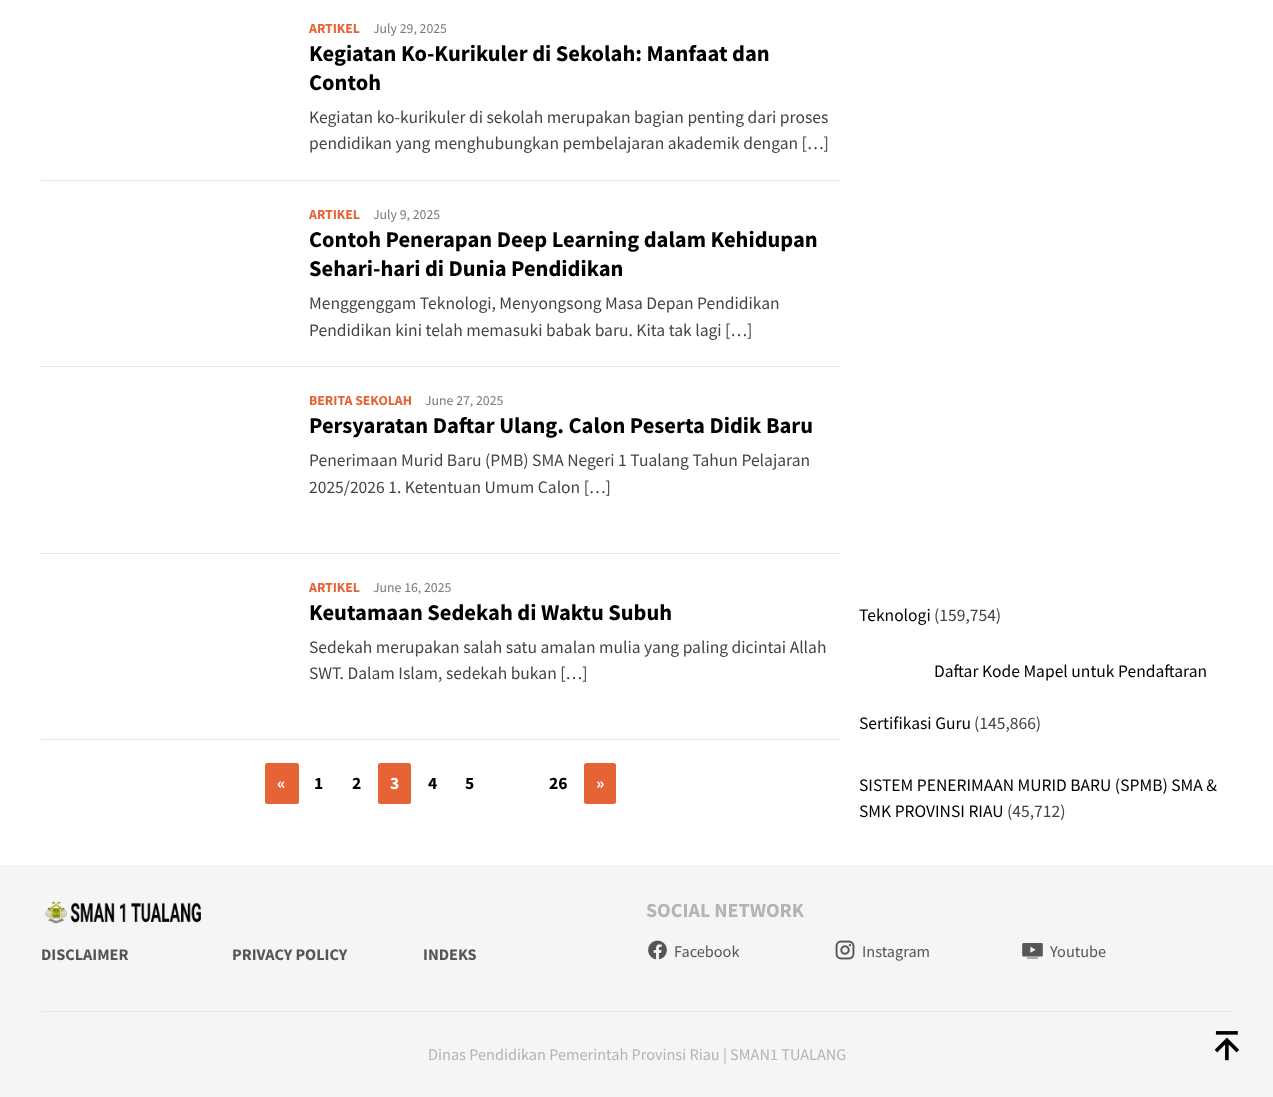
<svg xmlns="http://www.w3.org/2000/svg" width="1273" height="1097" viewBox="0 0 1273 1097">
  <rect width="100%" height="100%" fill="#f5f5f5"/>
  <rect x="0" y="0" width="1273" height="865" fill="#ffffff"/>
  <rect x="41" y="180" width="800" height="1" fill="#e5e5e5"/>
  <text x="309" y="33" font-family="Source Sans Pro" font-size="13.75" font-weight="bold" fill="#e56334">ARTIKEL</text>
  <text x="373" y="33" font-family="Source Sans Pro" font-size="13.75" fill="#787878">July 29, 2025</text>
  <text x="309" y="61" font-family="Source Sans Pro" font-size="22.5" font-weight="bold" fill="#000000">Kegiatan Ko-Kurikuler di Sekolah: Manfaat dan</text>
  <text x="309" y="90" font-family="Source Sans Pro" font-size="22.5" font-weight="bold" fill="#000000">Contoh</text>
  <text x="309" y="123" font-family="Source Sans Pro" font-size="17.5" fill="#444444">Kegiatan ko-kurikuler di sekolah merupakan bagian penting dari proses</text>
  <text x="309" y="149" font-family="Source Sans Pro" font-size="17.5" fill="#444444">pendidikan yang menghubungkan pembelajaran akademik dengan […]</text>
  <rect x="41" y="366" width="800" height="1" fill="#e5e5e5"/>
  <text x="309" y="219" font-family="Source Sans Pro" font-size="13.75" font-weight="bold" fill="#e56334">ARTIKEL</text>
  <text x="373" y="219" font-family="Source Sans Pro" font-size="13.75" fill="#787878">July 9, 2025</text>
  <text x="309" y="247" font-family="Source Sans Pro" font-size="22.5" font-weight="bold" fill="#000000">Contoh Penerapan Deep Learning dalam Kehidupan</text>
  <text x="309" y="276" font-family="Source Sans Pro" font-size="22.5" font-weight="bold" fill="#000000">Sehari-hari di Dunia Pendidikan</text>
  <text x="309" y="309" font-family="Source Sans Pro" font-size="17.5" fill="#444444">Menggenggam Teknologi, Menyongsong Masa Depan Pendidikan</text>
  <text x="309" y="336" font-family="Source Sans Pro" font-size="17.5" fill="#444444">Pendidikan kini telah memasuki babak baru. Kita tak lagi […]</text>
  <rect x="41" y="553" width="800" height="1" fill="#e5e5e5"/>
  <text x="309" y="405" font-family="Source Sans Pro" font-size="13.75" font-weight="bold" fill="#e56334">BERITA SEKOLAH</text>
  <text x="425" y="405" font-family="Source Sans Pro" font-size="13.75" fill="#787878">June 27, 2025</text>
  <text x="309" y="433" font-family="Source Sans Pro" font-size="22.5" font-weight="bold" fill="#000000">Persyaratan Daftar Ulang. Calon Peserta Didik Baru</text>
  <text x="309" y="466" font-family="Source Sans Pro" font-size="17.5" fill="#444444">Penerimaan Murid Baru (PMB) SMA Negeri 1 Tualang Tahun Pelajaran</text>
  <text x="309" y="493" font-family="Source Sans Pro" font-size="17.5" fill="#444444">2025/2026 1. Ketentuan Umum Calon […]</text>
  <rect x="41" y="739" width="800" height="1" fill="#e5e5e5"/>
  <text x="309" y="592" font-family="Source Sans Pro" font-size="13.75" font-weight="bold" fill="#e56334">ARTIKEL</text>
  <text x="373" y="592" font-family="Source Sans Pro" font-size="13.75" fill="#787878">June 16, 2025</text>
  <text x="309" y="620" font-family="Source Sans Pro" font-size="22.5" font-weight="bold" fill="#000000">Keutamaan Sedekah di Waktu Subuh</text>
  <text x="309" y="653" font-family="Source Sans Pro" font-size="17.5" fill="#444444">Sedekah merupakan salah satu amalan mulia yang paling dicintai Allah</text>
  <text x="309" y="679" font-family="Source Sans Pro" font-size="17.5" fill="#444444">SWT. Dalam Islam, sedekah bukan […]</text>
  <rect x="265" y="763" width="34" height="41" rx="2.5" fill="#e56334"/>
  <text x="277" y="789" font-family="Source Sans Pro" font-size="17.5" font-weight="bold" fill="#ffffff">«</text>
  <text x="314" y="789" font-family="Source Sans Pro" font-size="17.5" font-weight="bold" fill="#000000">1</text>
  <text x="352" y="789" font-family="Source Sans Pro" font-size="17.5" font-weight="bold" fill="#000000">2</text>
  <rect x="378" y="763" width="33" height="41" rx="2.5" fill="#e56334"/>
  <text x="390" y="789" font-family="Source Sans Pro" font-size="17.5" font-weight="bold" fill="#ffffff">3</text>
  <text x="428" y="789" font-family="Source Sans Pro" font-size="17.5" font-weight="bold" fill="#000000">4</text>
  <text x="465" y="789" font-family="Source Sans Pro" font-size="17.5" font-weight="bold" fill="#000000">5</text>
  <text x="549" y="789" font-family="Source Sans Pro" font-size="17.5" font-weight="bold" fill="#000000">26</text>
  <rect x="584" y="763" width="32" height="41" rx="2.5" fill="#e56334"/>
  <text x="596" y="789" font-family="Source Sans Pro" font-size="17.5" font-weight="bold" fill="#ffffff">»</text>
  <text x="859" y="621" font-family="Source Sans Pro" font-size="17.5" fill="#000000">Teknologi</text>
  <text x="934" y="621" font-family="Source Sans Pro" font-size="17.5" fill="#444444">(159,754)</text>
  <text x="934" y="677" font-family="Source Sans Pro" font-size="17.5" fill="#000000">Daftar Kode Mapel untuk Pendaftaran</text>
  <text x="859" y="729" font-family="Source Sans Pro" font-size="17.5" fill="#000000">Sertifikasi Guru</text>
  <text x="974" y="729" font-family="Source Sans Pro" font-size="17.5" fill="#444444">(145,866)</text>
  <text x="859" y="791" font-family="Source Sans Pro" font-size="17.5" fill="#000000">SISTEM PENERIMAAN MURID BARU (SPMB) SMA &amp;</text>
  <text x="859" y="817" font-family="Source Sans Pro" font-size="17.5" fill="#000000">SMK PROVINSI RIAU</text>
  <text x="1007" y="817" font-family="Source Sans Pro" font-size="17.5" fill="#444444">(45,712)</text>
  <image x="44" y="901" width="157" height="23" href="img1.png"/>
  <text x="41" y="960" font-family="Source Sans Pro" font-size="16.25" font-weight="bold" fill="#565656">DISCLAIMER</text>
  <text x="232" y="960" font-family="Source Sans Pro" font-size="16.25" font-weight="bold" fill="#565656">PRIVACY POLICY</text>
  <text x="423" y="960" font-family="Source Sans Pro" font-size="16.25" font-weight="bold" fill="#565656">INDEKS</text>
  <text x="646" y="917" font-family="Source Sans Pro" font-size="20" font-weight="bold" fill="#b4b4b4">SOCIAL NETWORK</text>
  <image x="648" y="940" width="19" height="20" href="img2.png"/>
  <text x="674" y="957" font-family="Source Sans Pro" font-size="16.25" fill="#565656">Facebook</text>
  <image x="835" y="940" width="20" height="20" href="img3.png"/>
  <text x="862" y="957" font-family="Source Sans Pro" font-size="16.25" fill="#565656">Instagram</text>
  <image x="1022" y="943" width="21" height="16" href="img4.png"/>
  <text x="1050" y="957" font-family="Source Sans Pro" font-size="16.25" fill="#565656">Youtube</text>
  <rect x="41" y="1011" width="1193" height="1" fill="#e9e9e9"/>
  <text x="428" y="1060" font-family="Source Sans Pro" font-size="16.25" fill="#b4b4b4">Dinas Pendidikan Pemerintah Provinsi Riau | SMAN1 TUALANG</text>
  <image x="1214" y="1031" width="25" height="30" href="img5.png"/>
</svg>
